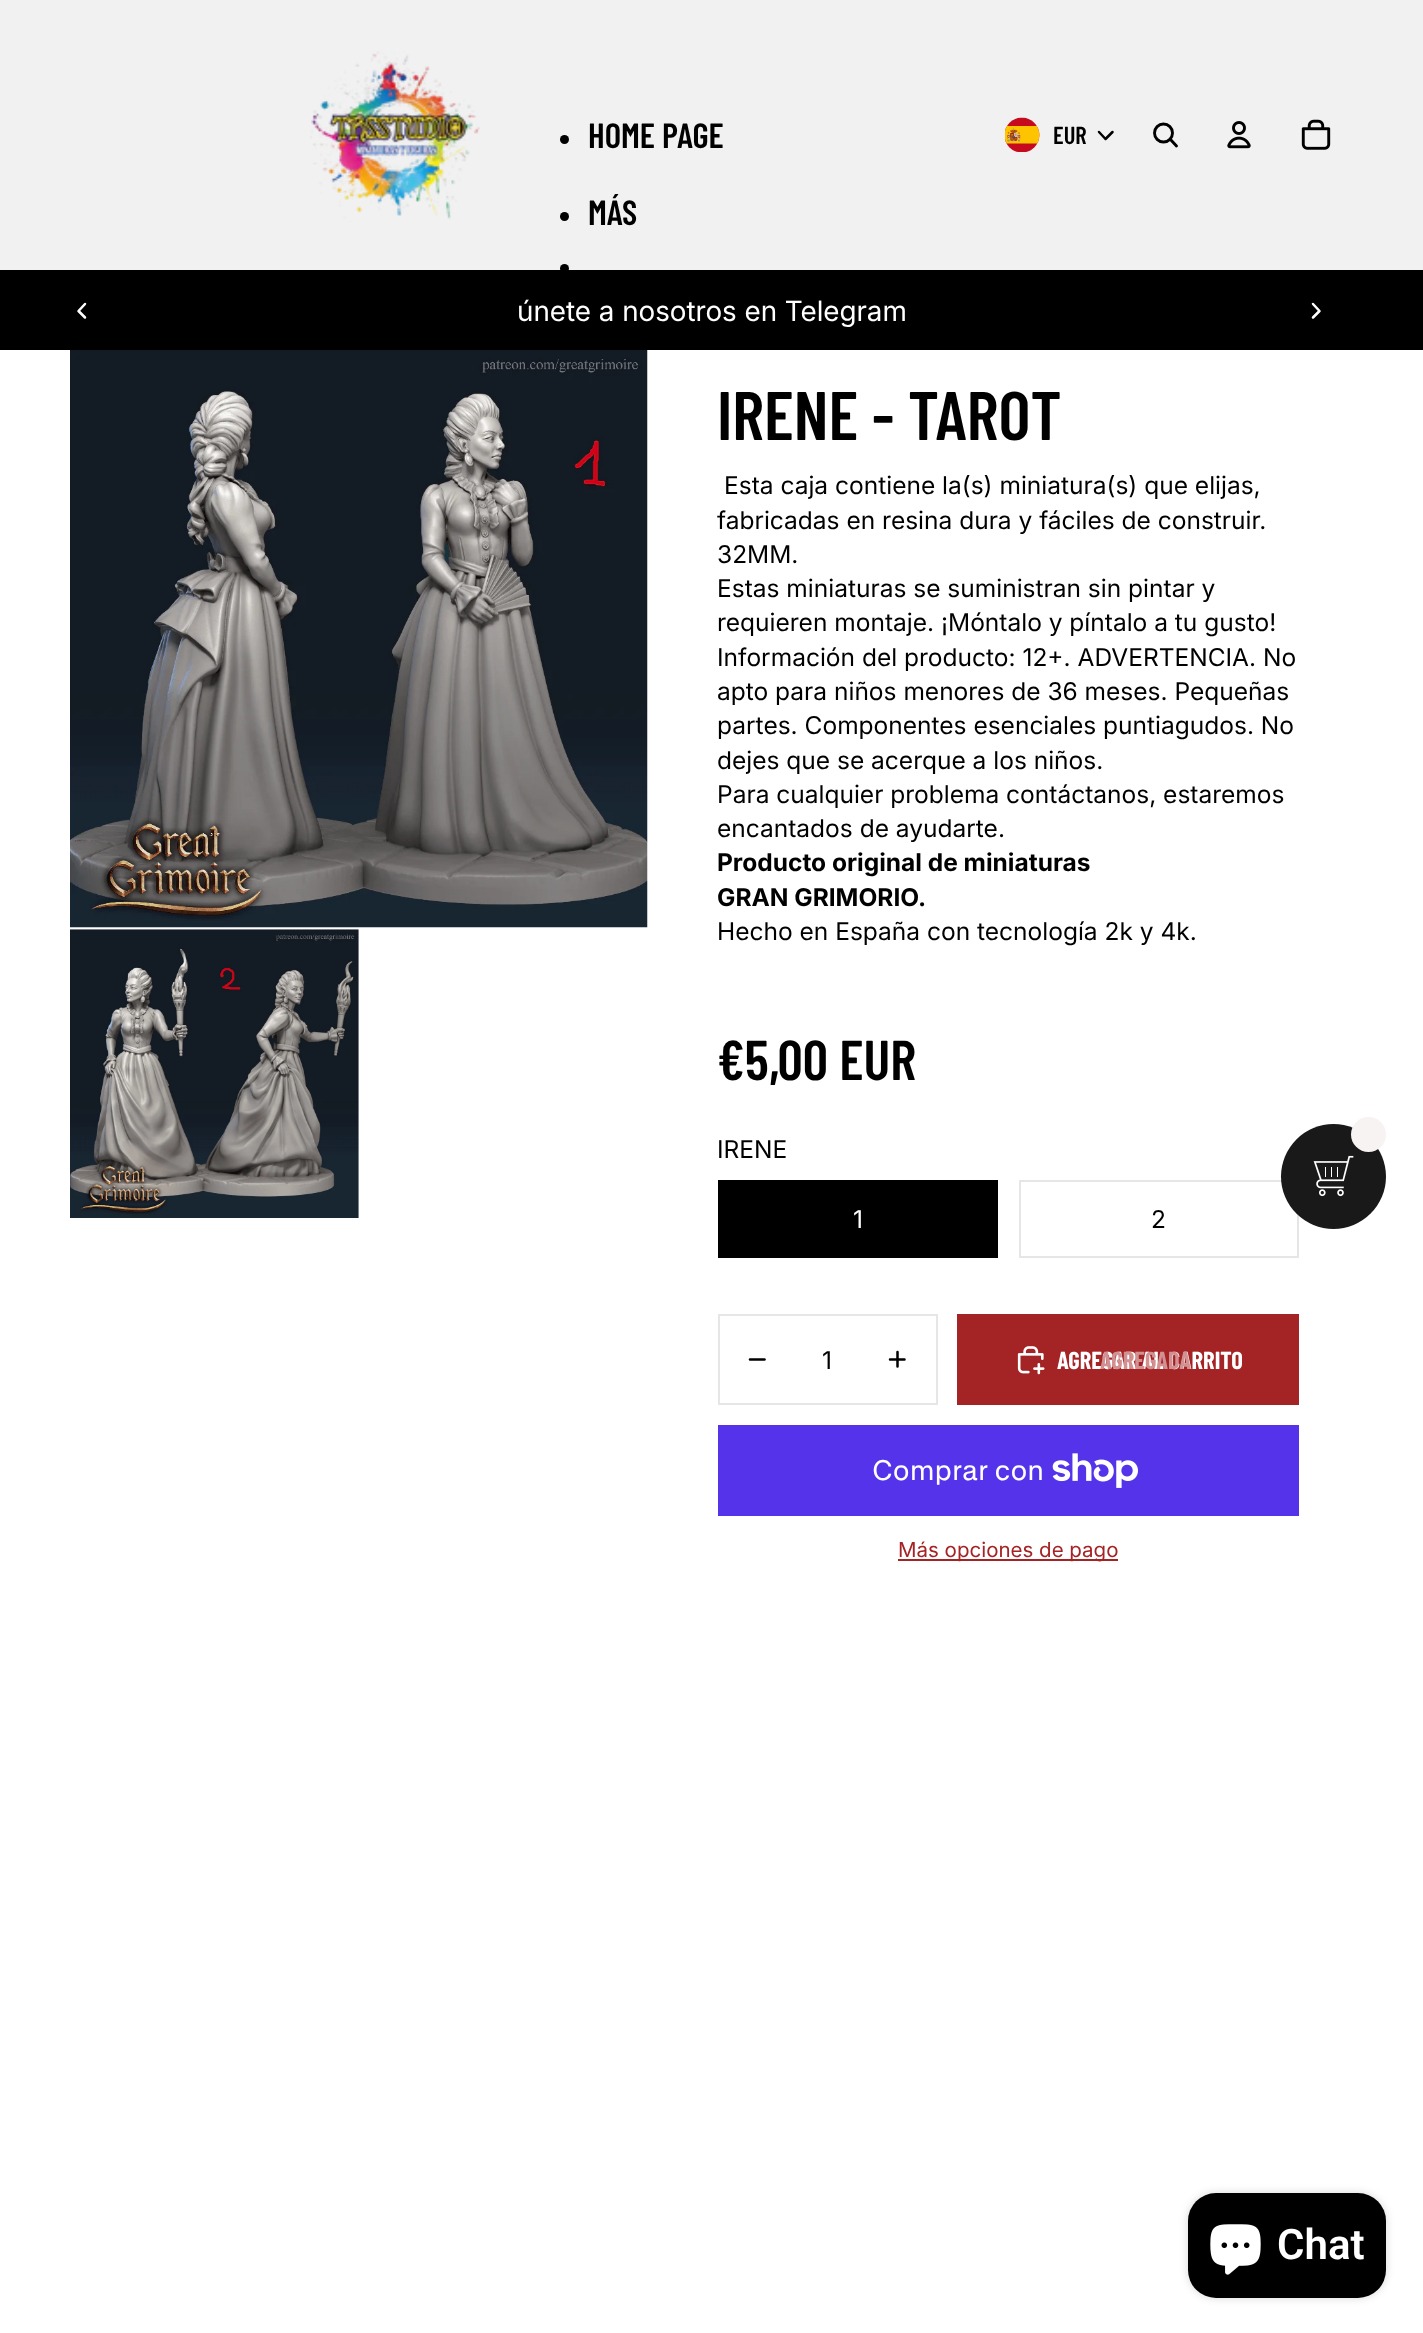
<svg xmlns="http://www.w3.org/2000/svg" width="1423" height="2333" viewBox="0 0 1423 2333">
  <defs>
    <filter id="blur1" x="-50%" y="-200%" width="200%" height="500%"><feGaussianBlur stdDeviation="4.5"/></filter>
  </defs>
  <rect width="100%" height="100%" fill="#ffffff"/>
  <rect x="0" y="0" width="1423" height="270" fill="#f1f1f1"/>
  <image x="310" y="51" width="170" height="171" href="img1.png"/>
  <circle cx="564.5" cy="139.5" r="4.5" fill="#000000"/>
  <text x="588" y="148" font-family="Barlow Condensed" font-size="35" font-weight="600" fill="#000000">HOME PAGE</text>
  <circle cx="564.5" cy="216.5" r="4.5" fill="#000000"/>
  <text x="588" y="225" font-family="Barlow Condensed" font-size="35" font-weight="600" fill="#000000">MÁS</text>
  <rect x="0" y="270" width="1423" height="80" fill="#000000"/>
  <circle cx="564.5" cy="268.5" r="4.5" fill="#000000"/>
  <image x="1005" y="117" width="35" height="35" href="img2.png"/>
  <text x="1053" y="144" font-family="Barlow Condensed" font-size="24.5" font-weight="600" fill="#000000">EUR</text>
  <path d="M1112.5 132L1105.5 139L1099 132" fill="none" stroke="#000000" stroke-width="2.5" stroke-linecap="round" stroke-linejoin="round"/>
  <circle cx="1163.5" cy="133" r="9" fill="none" stroke="#000000" stroke-width="2.9"/>
  <path d="M1170.5 139.5L1176.5 146" fill="none" stroke="#000000" stroke-width="2.9" stroke-linecap="round" stroke-linejoin="round"/>
  <image x="1227" y="121" width="24" height="28" href="img3.png"/>
  <image x="1301" y="119" width="30" height="31" href="img4.png"/>
  <text x="517" y="321" font-family="Inter" font-size="28" fill="#ffffff">únete a nosotros en Telegram</text>
  <path d="M85 304L78.5 311L85 317.5" fill="none" stroke="#ffffff" stroke-width="2.5" stroke-linecap="round" stroke-linejoin="round"/>
  <path d="M1313 304L1319.5 311L1313 317.5" fill="none" stroke="#ffffff" stroke-width="2.5" stroke-linecap="round" stroke-linejoin="round"/>
  <image x="70" y="350" width="578" height="578" href="img5.png"/>
  <image x="70" y="929" width="289" height="289" href="img6.png"/>
  <text x="717" y="440" font-family="Barlow Condensed" font-size="68.5" font-weight="600" fill="#000000">IRENE - TAROT</text>
  <text x="724" y="494" font-family="'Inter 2'" font-size="24.5" fill="#000000">Esta caja contiene la(s) miniatura(s) que elijas,</text>
  <text x="717" y="529" font-family="'Inter 2'" font-size="24.5" fill="#000000">fabricadas en resina dura y fáciles de construir.</text>
  <text x="717" y="563" font-family="'Inter 2'" font-size="24.5" fill="#000000">32MM.</text>
  <text x="717" y="597" font-family="'Inter 2'" font-size="24.5" fill="#000000">Estas miniaturas se suministran sin pintar y</text>
  <text x="717" y="631" font-family="'Inter 2'" font-size="24.5" fill="#000000">requieren montaje. ¡Móntalo y píntalo a tu gusto!</text>
  <text x="717" y="666" font-family="'Inter 2'" font-size="24.5" fill="#000000">Información del producto: 12+. ADVERTENCIA. No</text>
  <text x="717" y="700" font-family="'Inter 2'" font-size="24.5" fill="#000000">apto para niños menores de 36 meses. Pequeñas</text>
  <text x="717" y="734" font-family="'Inter 2'" font-size="24.5" fill="#000000">partes. Componentes esenciales puntiagudos. No</text>
  <text x="717" y="769" font-family="'Inter 2'" font-size="24.5" fill="#000000">dejes que se acerque a los niños.</text>
  <text x="717" y="803" font-family="'Inter 2'" font-size="24.5" fill="#000000">Para cualquier problema contáctanos, estaremos</text>
  <text x="717" y="837" font-family="'Inter 2'" font-size="24.5" fill="#000000">encantados de ayudarte.</text>
  <text x="717" y="871" font-family="Inter" font-size="24.5" font-weight="bold" fill="#000000">Producto original de miniaturas</text>
  <text x="717" y="906" font-family="Inter" font-size="24.5" font-weight="bold" fill="#000000">GRAN GRIMORIO.</text>
  <text x="717" y="940" font-family="'Inter 2'" font-size="24.5" fill="#000000">Hecho en España con tecnología 2k y 4k.</text>
  <text x="717" y="1080" font-family="Barlow Condensed" font-size="56" font-weight="600" fill="#000000">€5,00 EUR</text>
  <text x="717" y="1158" font-family="'Inter 2'" font-size="24.5" fill="#000000">IRENE</text>
  <rect x="718" y="1180" width="280" height="78" fill="#000000"/>
  <text x="853" y="1228" font-family="'Inter 2'" font-size="24.5" fill="#ffffff">1</text>
  <rect x="1020" y="1181" width="278" height="76" fill="none" stroke="#e6e6e6" stroke-width="2"/>
  <text x="1151" y="1228" font-family="'Inter 2'" font-size="24.5" fill="#000000">2</text>
  <rect x="719" y="1315" width="218" height="89" fill="none" stroke="#e6e6e6" stroke-width="2"/>
  <path d="M750 1359.5H764.5" fill="none" stroke="#000000" stroke-width="2.5" stroke-linecap="round"/>
  <text x="822" y="1369" font-family="'Inter 2'" font-size="24.5" fill="#000000">1</text>
  <path d="M890 1359.5H904.5M897.5 1352V1366.5" fill="none" stroke="#000000" stroke-width="2.5" stroke-linecap="round"/>
  <rect x="957" y="1314" width="342" height="91" fill="#a42325"/>
  <image x="1017" y="1346" width="28" height="29" href="img7.png"/>
  <text x="1057" y="1369" font-family="Barlow Condensed" font-size="24.5" font-weight="bold" fill="#ffffff">AGREGAR AL CARRITO</text>
  <text x="1100" y="1369" font-family="Barlow Condensed" font-size="24.5" font-weight="bold" fill="#d19091">AGREGADA</text>
  <rect x="718" y="1425" width="581" height="91" fill="#5433eb"/>
  <text x="872" y="1480" font-family="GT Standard" font-size="28" fill="#ffffff">Comprar con</text>
  <image x="1052" y="1453" width="86" height="35" href="img8.png"/>
  <rect x="898" y="1559" width="220" height="2" fill="#a42325"/>
  <text x="898" y="1557" font-family="'Inter 2'" font-size="20.5" fill="#a42325">Más opciones de pago</text>
  <circle cx="1333.5" cy="1176.5" r="52.5" fill="#191919"/>
  <circle cx="1368.5" cy="1134.5" r="17.5" fill="#f7f3f3"/>
  <image x="1313" y="1155" width="41" height="42" href="img9.png"/>
  <rect x="1188" y="2193" width="198" height="105" rx="28" fill="#000000" fill-opacity="0.15" filter="url(#blur1)"/>
  <rect x="1188" y="2193" width="198" height="105" rx="28" fill="#000000"/>
  <image x="1210" y="2224" width="51" height="51" href="img10.png"/>
  <text x="1277" y="2259" font-family="Roboto" font-size="42" font-weight="600" fill="#ffffff">Chat</text>
</svg>
